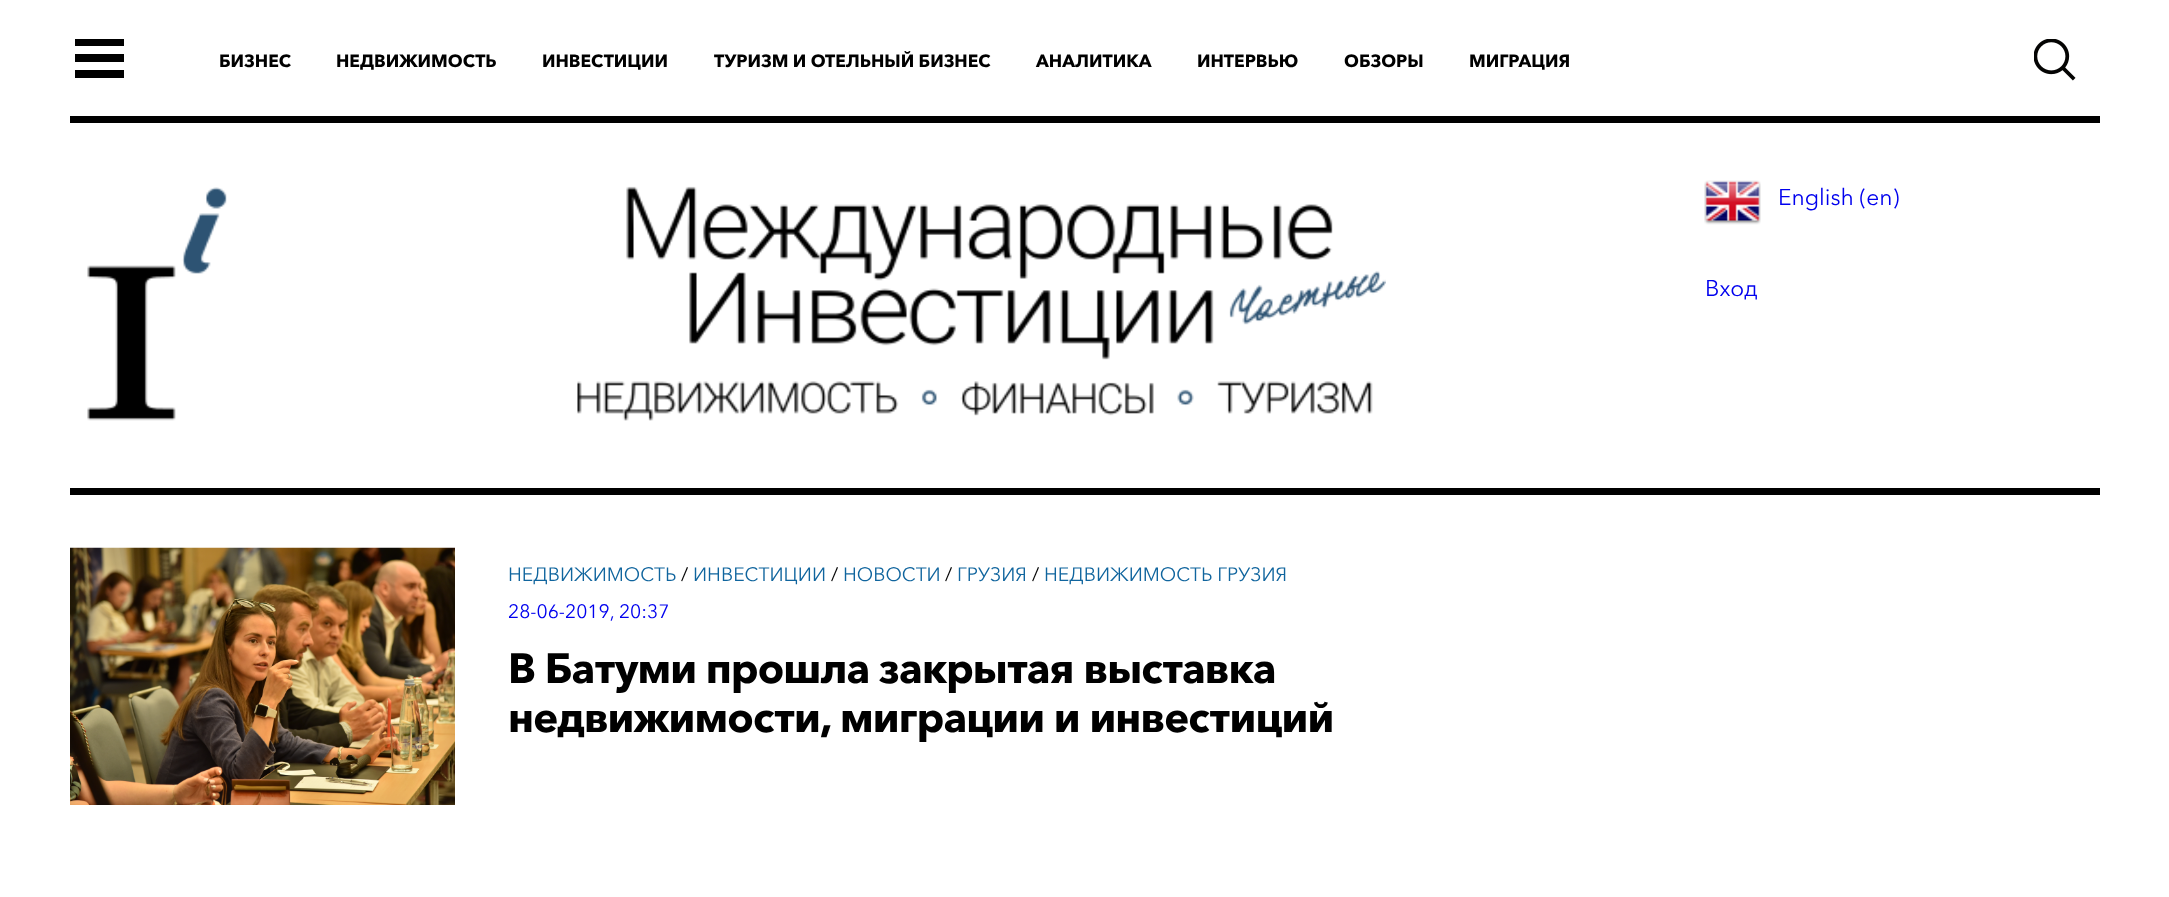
<svg xmlns="http://www.w3.org/2000/svg" width="2169" height="897" viewBox="0 0 2169 897">
  <rect width="100%" height="100%" fill="#ffffff"/>
  <rect x="70" y="116" width="2030" height="7" fill="#000000"/>
  <rect x="75" y="39" width="49" height="7" fill="#000000"/>
  <rect x="75" y="54" width="49" height="8" fill="#000000"/>
  <rect x="75" y="70" width="49" height="8" fill="#000000"/>
  <text x="219" y="67" font-family="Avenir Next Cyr" font-size="17.5" font-weight="bold" fill="#000000">БИЗНЕС</text>
  <text x="336" y="67" font-family="Avenir Next Cyr" font-size="17.5" font-weight="bold" fill="#000000">НЕДВИЖИМОСТЬ</text>
  <text x="542" y="67" font-family="Avenir Next Cyr" font-size="17.5" font-weight="bold" fill="#000000">ИНВЕСТИЦИИ</text>
  <text x="714" y="67" font-family="Avenir Next Cyr" font-size="17.5" font-weight="bold" fill="#000000">ТУРИЗМ И ОТЕЛЬНЫЙ БИЗНЕС</text>
  <text x="1036" y="67" font-family="Avenir Next Cyr" font-size="17.5" font-weight="bold" fill="#000000">АНАЛИТИКА</text>
  <text x="1197" y="67" font-family="Avenir Next Cyr" font-size="17.5" font-weight="bold" fill="#000000">ИНТЕРВЬЮ</text>
  <text x="1344" y="67" font-family="Avenir Next Cyr" font-size="17.5" font-weight="bold" fill="#000000">ОБЗОРЫ</text>
  <text x="1469" y="67" font-family="Avenir Next Cyr" font-size="17.5" font-weight="bold" fill="#000000">МИГРАЦИЯ</text>
  <image x="2034" y="39" width="42" height="42" href="img1.png"/>
  <image x="87" y="187" width="140" height="234" href="img2.png"/>
  <image x="577" y="186" width="809" height="235" href="img3.png"/>
  <image x="1704" y="180" width="57" height="45" href="img4.png"/>
  <text x="1778" y="205" font-family="Avenir Next Cyr" font-size="22.75" fill="#0000ee">English (en)</text>
  <text x="1705" y="296" font-family="Avenir Next Cyr" font-size="22.75" fill="#0000ee">Вход</text>
  <rect x="70" y="488" width="2030" height="7" fill="#000000"/>
  <image x="70" y="547" width="385" height="258" href="img5.png"/>
  <text x="508" y="581" font-family="Avenir Next Cyr" font-size="19.25" fill="#10659e">НЕДВИЖИМОСТЬ</text>
  <text x="681" y="581" font-family="Avenir Next Cyr" font-size="19.25" fill="#000000">/</text>
  <text x="693" y="581" font-family="Avenir Next Cyr" font-size="19.25" fill="#10659e">ИНВЕСТИЦИИ</text>
  <text x="831" y="581" font-family="Avenir Next Cyr" font-size="19.25" fill="#000000">/</text>
  <text x="843" y="581" font-family="Avenir Next Cyr" font-size="19.25" fill="#10659e">НОВОСТИ</text>
  <text x="945" y="581" font-family="Avenir Next Cyr" font-size="19.25" fill="#000000">/</text>
  <text x="957" y="581" font-family="Avenir Next Cyr" font-size="19.25" fill="#10659e">ГРУЗИЯ</text>
  <text x="1032" y="581" font-family="Avenir Next Cyr" font-size="19.25" fill="#000000">/</text>
  <text x="1044" y="581" font-family="Avenir Next Cyr" font-size="19.25" fill="#10659e">НЕДВИЖИМОСТЬ ГРУЗИЯ</text>
  <text x="508" y="618" font-family="Avenir Next Cyr" font-size="19.25" fill="#0000ee">28-06-2019, 20:37</text>
  <text x="508" y="683" font-family="Avenir Next Cyr" font-size="42" font-weight="bold" letter-spacing="-0.9" fill="#000000">В Батуми прошла закрытая выставка</text>
  <text x="508" y="732" font-family="Avenir Next Cyr" font-size="42" font-weight="bold" letter-spacing="-0.9" fill="#000000">недвижимости, миграции и инвестиций</text>
</svg>
